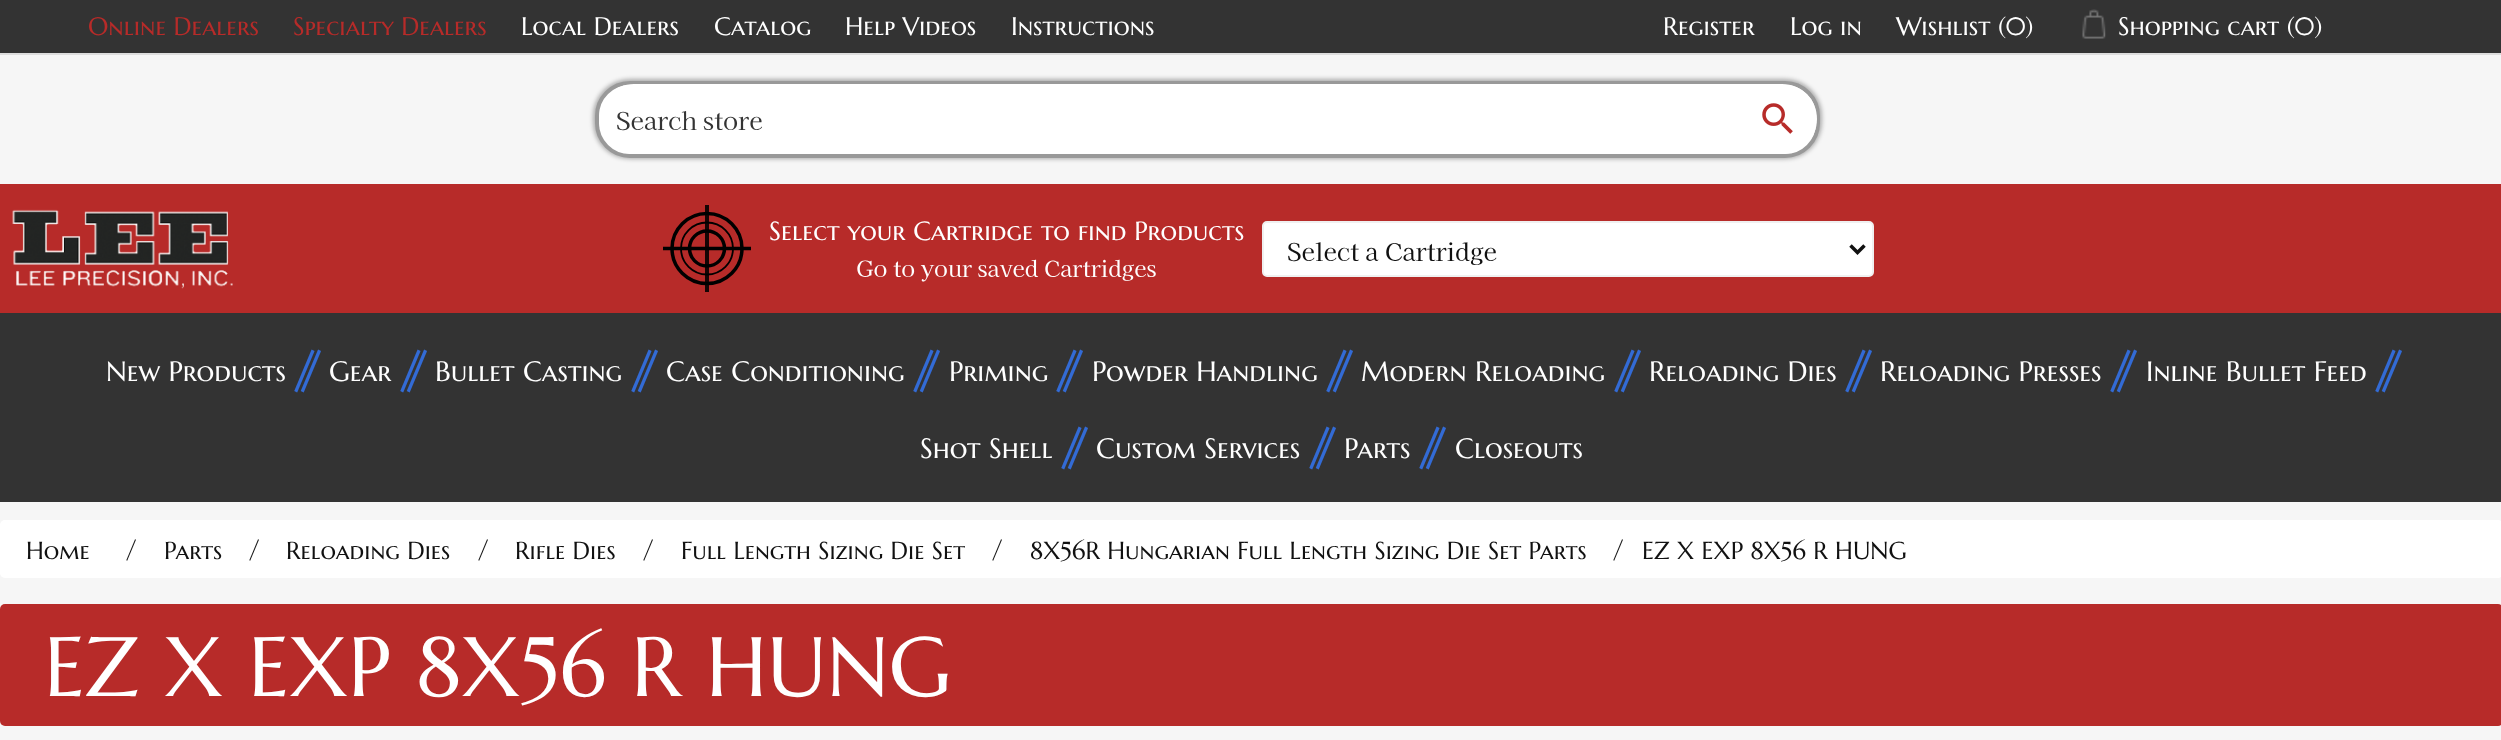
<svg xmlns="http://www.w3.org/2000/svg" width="2501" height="740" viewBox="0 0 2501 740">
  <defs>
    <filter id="blur1" x="-50%" y="-200%" width="200%" height="500%"><feGaussianBlur stdDeviation="2"/></filter>
  </defs>
  <rect width="100%" height="100%" fill="#f6f6f6"/>
  <rect x="0" y="184" width="2501" height="129" fill="#b72b29"/>
  <rect x="0" y="0" width="2501" height="53" fill="#333333"/>
  <rect x="0" y="53" width="2501" height="2" fill="#dddddd"/>
  <text x="88" y="35" font-family="Marcellus SC" font-size="25.25" fill="#b72b29">Online Dealers</text>
  <text x="293" y="35" font-family="Marcellus SC" font-size="25.25" fill="#b72b29">Specialty Dealers</text>
  <text x="521" y="35" font-family="Marcellus SC" font-size="25.25" fill="#ffffff">Local Dealers</text>
  <text x="714" y="35" font-family="Marcellus SC" font-size="25.25" fill="#ffffff">Catalog</text>
  <text x="845" y="35" font-family="Marcellus SC" font-size="25.25" fill="#ffffff">Help Videos</text>
  <text x="1011" y="35" font-family="Marcellus SC" font-size="25.25" fill="#ffffff">Instructions</text>
  <text x="1663" y="35" font-family="Marcellus SC" font-size="25.25" fill="#ffffff">Register</text>
  <text x="1790" y="35" font-family="Marcellus SC" font-size="25.25" fill="#ffffff">Log in</text>
  <text x="1896" y="35" font-family="Marcellus SC" font-size="25.25" fill="#ffffff">Wishlist (0)</text>
  <image x="2082" y="9" width="24" height="30" href="img1.png"/>
  <text x="2118" y="35" font-family="Marcellus SC" font-size="25.25" fill="#ffffff">Shopping cart (0)</text>
  <rect x="593" y="79" width="1229" height="80" rx="37" fill="#000000" fill-opacity="0.3" filter="url(#blur1)"/>
  <rect x="597" y="83" width="1221" height="73" rx="33" fill="#ffffff" stroke="#999999" stroke-width="4"/>
  <path d="M634 84H1740V154H634C614.5 154 599 138.5 599 119C599 99.5 614.5 84 634 84Z" fill="#ffffff"/>
  <text x="616" y="130" font-family="Kaisei Decol" font-size="24.5" fill="#333333">Search store</text>
  <path d="M1738 84H1782C1801.5 84 1817 99.5 1817 119C1817 138.5 1801.5 154 1782 154H1738Z" fill="#ffffff"/>
  <image x="1762" y="103" width="31" height="31" href="img2.png"/>
  <image x="12" y="209" width="221" height="80" href="img3.png"/>
  <circle cx="707" cy="248.5" r="35" fill="none" stroke="#000000" stroke-width="3.5"/>
  <circle cx="707" cy="248.5" r="26" fill="none" stroke="#000000" stroke-width="1.8"/>
  <circle cx="707" cy="248.5" r="17.5" fill="none" stroke="#000000" stroke-width="3.5"/>
  <rect x="705" y="205" width="4" height="87" fill="#000000" fill-opacity="0.88"/>
  <path d="M663 248.5H751" fill="none" stroke="#000000" stroke-width="3.5"/>
  <text x="769" y="240" font-family="Marcellus SC" font-size="26.25" fill="#ffffff">Select your Cartridge to find Products</text>
  <text x="856" y="277" font-family="Kaisei Decol" font-size="22.4" fill="#ffffff">Go to your saved Cartridges</text>
  <rect x="1263" y="222" width="610" height="54" rx="4" fill="#ffffff" stroke="#f0f0f0" stroke-width="2"/>
  <path d="M1850.5 245.5L1857.5 252.5L1864.5 245.5" fill="none" stroke="#111111" stroke-width="3.5"/>
  <text x="1287" y="261" font-family="Kaisei Decol" font-size="24.5" fill="#111111">Select a Cartridge</text>
  <rect x="0" y="313" width="2501" height="189" fill="#333333"/>
  <text x="106" y="381" font-family="Marcellus SC" font-size="28" fill="#ffffff">New Products</text>
  <text x="292" y="389" font-family="Kaisei Decol" font-size="47" font-weight="bold" letter-spacing="-17" fill="#336bd5">//</text>
  <text x="329" y="381" font-family="Marcellus SC" font-size="28" fill="#ffffff">Gear</text>
  <text x="398" y="389" font-family="Kaisei Decol" font-size="47" font-weight="bold" letter-spacing="-17" fill="#336bd5">//</text>
  <text x="435" y="381" font-family="Marcellus SC" font-size="28" fill="#ffffff">Bullet Casting</text>
  <text x="629" y="389" font-family="Kaisei Decol" font-size="47" font-weight="bold" letter-spacing="-17" fill="#336bd5">//</text>
  <text x="666" y="381" font-family="Marcellus SC" font-size="28" fill="#ffffff">Case Conditioning</text>
  <text x="911" y="389" font-family="Kaisei Decol" font-size="47" font-weight="bold" letter-spacing="-17" fill="#336bd5">//</text>
  <text x="949" y="381" font-family="Marcellus SC" font-size="28" fill="#ffffff">Priming</text>
  <text x="1054" y="389" font-family="Kaisei Decol" font-size="47" font-weight="bold" letter-spacing="-17" fill="#336bd5">//</text>
  <text x="1092" y="381" font-family="Marcellus SC" font-size="28" fill="#ffffff">Powder Handling</text>
  <text x="1324" y="389" font-family="Kaisei Decol" font-size="47" font-weight="bold" letter-spacing="-17" fill="#336bd5">//</text>
  <text x="1361" y="381" font-family="Marcellus SC" font-size="28" fill="#ffffff">Modern Reloading</text>
  <text x="1612" y="389" font-family="Kaisei Decol" font-size="47" font-weight="bold" letter-spacing="-17" fill="#336bd5">//</text>
  <text x="1649" y="381" font-family="Marcellus SC" font-size="28" fill="#ffffff">Reloading Dies</text>
  <text x="1843" y="389" font-family="Kaisei Decol" font-size="47" font-weight="bold" letter-spacing="-17" fill="#336bd5">//</text>
  <text x="1880" y="381" font-family="Marcellus SC" font-size="28" fill="#ffffff">Reloading Presses</text>
  <text x="2108" y="389" font-family="Kaisei Decol" font-size="47" font-weight="bold" letter-spacing="-17" fill="#336bd5">//</text>
  <text x="2146" y="381" font-family="Marcellus SC" font-size="28" fill="#ffffff">Inline Bullet Feed</text>
  <text x="2373" y="389" font-family="Kaisei Decol" font-size="47" font-weight="bold" letter-spacing="-17" fill="#336bd5">//</text>
  <text x="920" y="458" font-family="Marcellus SC" font-size="28" fill="#ffffff">Shot Shell</text>
  <text x="1059" y="466" font-family="Kaisei Decol" font-size="47" font-weight="bold" letter-spacing="-17" fill="#336bd5">//</text>
  <text x="1096" y="458" font-family="Marcellus SC" font-size="28" fill="#ffffff">Custom Services</text>
  <text x="1307" y="466" font-family="Kaisei Decol" font-size="47" font-weight="bold" letter-spacing="-17" fill="#336bd5">//</text>
  <text x="1344" y="458" font-family="Marcellus SC" font-size="28" fill="#ffffff">Parts</text>
  <text x="1417" y="466" font-family="Kaisei Decol" font-size="47" font-weight="bold" letter-spacing="-17" fill="#336bd5">//</text>
  <text x="1455" y="458" font-family="Marcellus SC" font-size="28" fill="#ffffff">Closeouts</text>
  <rect x="0" y="520" width="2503" height="58" rx="5" fill="#ffffff"/>
  <text x="26" y="559" font-family="Marcellus SC" font-size="24.5" fill="#111111">Home</text>
  <text x="125" y="559" font-family="Kaisei Decol" font-size="24.5" fill="#111111">/</text>
  <text x="164" y="559" font-family="Marcellus SC" font-size="24.5" fill="#111111">Parts</text>
  <text x="248" y="559" font-family="Kaisei Decol" font-size="24.5" fill="#111111">/</text>
  <text x="286" y="559" font-family="Marcellus SC" font-size="24.5" fill="#111111">Reloading Dies</text>
  <text x="477" y="559" font-family="Kaisei Decol" font-size="24.5" fill="#111111">/</text>
  <text x="515" y="559" font-family="Marcellus SC" font-size="24.5" fill="#111111">Rifle Dies</text>
  <text x="642" y="559" font-family="Kaisei Decol" font-size="24.5" fill="#111111">/</text>
  <text x="681" y="559" font-family="Marcellus SC" font-size="24.5" fill="#111111">Full Length Sizing Die Set</text>
  <text x="991" y="559" font-family="Kaisei Decol" font-size="24.5" fill="#111111">/</text>
  <text x="1030" y="559" font-family="Marcellus SC" font-size="24.5" fill="#111111">8X56R Hungarian Full Length Sizing Die Set Parts</text>
  <text x="1612" y="559" font-family="Kaisei Decol" font-size="24.5" fill="#111111">/</text>
  <text x="1642" y="559" font-family="Marcellus SC" font-size="24.5" fill="#111111">EZ X EXP 8X56 R HUNG</text>
  <rect x="0" y="604" width="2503" height="122" rx="5" fill="#b72b29"/>
  <text x="44" y="696" font-family="Marcellus SC" font-size="84" fill="#ffffff">EZ X EXP 8X56 R HUNG</text>
</svg>
